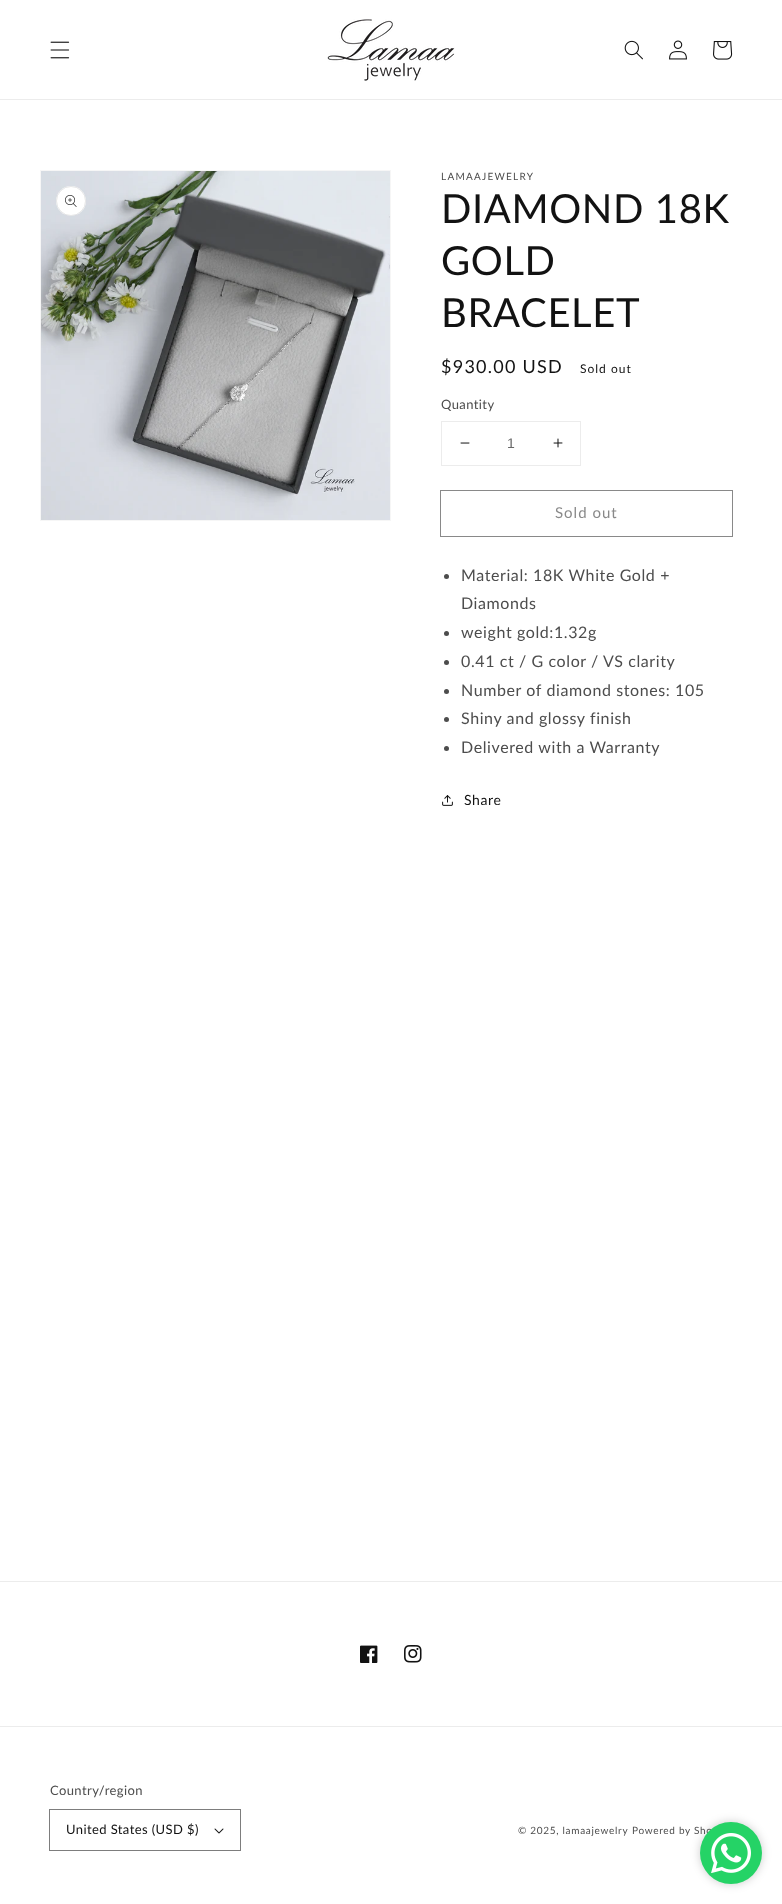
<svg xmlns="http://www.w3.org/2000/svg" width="782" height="1904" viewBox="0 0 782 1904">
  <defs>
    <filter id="blur1" x="-50%" y="-200%" width="200%" height="500%"><feGaussianBlur stdDeviation="5"/></filter>
  </defs>
  <rect width="100%" height="100%" fill="#ffffff"/>
  <rect x="0" y="99" width="782" height="1" fill="#ececec"/>
  <image x="50" y="41" width="20" height="18" href="img1.png"/>
  <image x="327" y="19" width="128" height="62" href="img2.png"/>
  <image x="624" y="40" width="19" height="20" href="img3.png"/>
  <image x="669" y="40" width="18" height="20" href="img4.png"/>
  <image x="713" y="41" width="20" height="19" href="img5.png"/>
  <rect x="40.5" y="170.5" width="350" height="350" fill="none" stroke="#f6f6f6"/>
  <image x="41" y="171" width="349" height="349" href="img6.png"/>
  <circle cx="71" cy="201" r="15" fill="#ffffff"/>
  <circle cx="71" cy="201" r="14.5" fill="none" stroke="#121212" stroke-opacity="0.1"/>
  <image x="65" y="195" width="12" height="12" href="img7.png"/>
  <text x="441" y="180" font-family="Lato" font-size="10" letter-spacing="1.25" fill="#4d4d4d">LAMAAJEWELRY</text>
  <text x="441" y="223" font-family="Lato" font-size="40" letter-spacing="0.6" fill="#121212">DIAMOND 18K</text>
  <text x="441" y="275" font-family="Lato" font-size="40" letter-spacing="0.6" fill="#121212">GOLD</text>
  <text x="441" y="327" font-family="Lato" font-size="40" letter-spacing="0.6" fill="#121212">BRACELET</text>
  <text x="441" y="373" font-family="Lato" font-size="18" letter-spacing="1.25" fill="#121212">$930.00 USD</text>
  <text x="580" y="373" font-family="Lato" font-size="12" letter-spacing="1" fill="#121212">Sold out</text>
  <text x="441" y="409" font-family="Lato" font-size="13" letter-spacing="0.4" fill="#4d4d4d">Quantity</text>
  <rect x="441.5" y="421.5" width="139" height="44" fill="none" stroke="#ececec"/>
  <image x="460" y="442" width="10" height="2" href="img8.png"/>
  <text x="507" y="448" font-family="Liberation Sans" font-size="14" fill="#686868">1</text>
  <image x="553" y="438" width="10" height="10" href="img9.png"/>
  <rect x="440.5" y="490.5" width="292" height="46" fill="none" stroke="#898989"/>
  <text x="555" y="518" font-family="Lato" font-size="15" letter-spacing="1" fill="#898989">Sold out</text>
  <circle cx="446.5" cy="576.5" r="2.5" fill="#4d4d4d"/>
  <text x="461" y="581" font-family="Lato" font-size="16" letter-spacing="0.6" fill="#4d4d4d">Material: 18K White Gold +</text>
  <text x="461" y="609" font-family="Lato" font-size="16" letter-spacing="0.6" fill="#4d4d4d">Diamonds</text>
  <circle cx="446.5" cy="633.5" r="2.5" fill="#4d4d4d"/>
  <text x="461" y="638" font-family="Lato" font-size="16" letter-spacing="0.6" fill="#4d4d4d">weight gold:1.32g</text>
  <circle cx="446.5" cy="662.5" r="2.5" fill="#4d4d4d"/>
  <text x="461" y="667" font-family="Lato" font-size="16" letter-spacing="0.6" fill="#4d4d4d">0.41 ct / G color / VS clarity</text>
  <circle cx="446.5" cy="691.5" r="2.5" fill="#4d4d4d"/>
  <text x="461" y="696" font-family="Lato" font-size="16" letter-spacing="0.6" fill="#4d4d4d">Number of diamond stones: 105</text>
  <circle cx="446.5" cy="719.5" r="2.5" fill="#4d4d4d"/>
  <text x="461" y="724" font-family="Lato" font-size="16" letter-spacing="0.6" fill="#4d4d4d">Shiny and glossy finish</text>
  <circle cx="446.5" cy="748.5" r="2.5" fill="#4d4d4d"/>
  <text x="461" y="753" font-family="Lato" font-size="16" letter-spacing="0.6" fill="#4d4d4d">Delivered with a Warranty</text>
  <image x="442" y="795" width="11" height="11" href="img10.png"/>
  <text x="464" y="805" font-family="Lato" font-size="14" letter-spacing="0.6" fill="#121212">Share</text>
  <rect x="0" y="1581" width="782" height="1" fill="#ececec"/>
  <image x="360" y="1645" width="18" height="18" href="img11.png"/>
  <image x="404" y="1645" width="18" height="18" href="img12.png"/>
  <rect x="0" y="1726" width="782" height="1" fill="#ececec"/>
  <text x="50" y="1795" font-family="Lato" font-size="13" letter-spacing="0.4" fill="#4d4d4d">Country/region</text>
  <rect x="49.5" y="1809.5" width="191" height="41" fill="none" stroke="#7d7d7d"/>
  <text x="66" y="1834" font-family="Lato" font-size="13" letter-spacing="0.4" fill="#121212">United States (USD $)</text>
  <image x="214" y="1828" width="10" height="6" href="img13.png"/>
  <text x="518" y="1834" font-family="Lato" font-size="10" letter-spacing="0.7" fill="#4d4d4d">© 2025, lamaajewelry</text>
  <text x="632" y="1834" font-family="Lato" font-size="10" letter-spacing="0.7" fill="#4d4d4d">Powered by Sho</text>
  <rect x="700" y="1822" width="62" height="62" rx="31" fill="#000000" fill-opacity="0.2" filter="url(#blur1)"/>
  <circle cx="731" cy="1853" r="31" fill="#25d366"/>
  <image x="711" y="1833" width="40" height="40" href="img14.png"/>
</svg>
